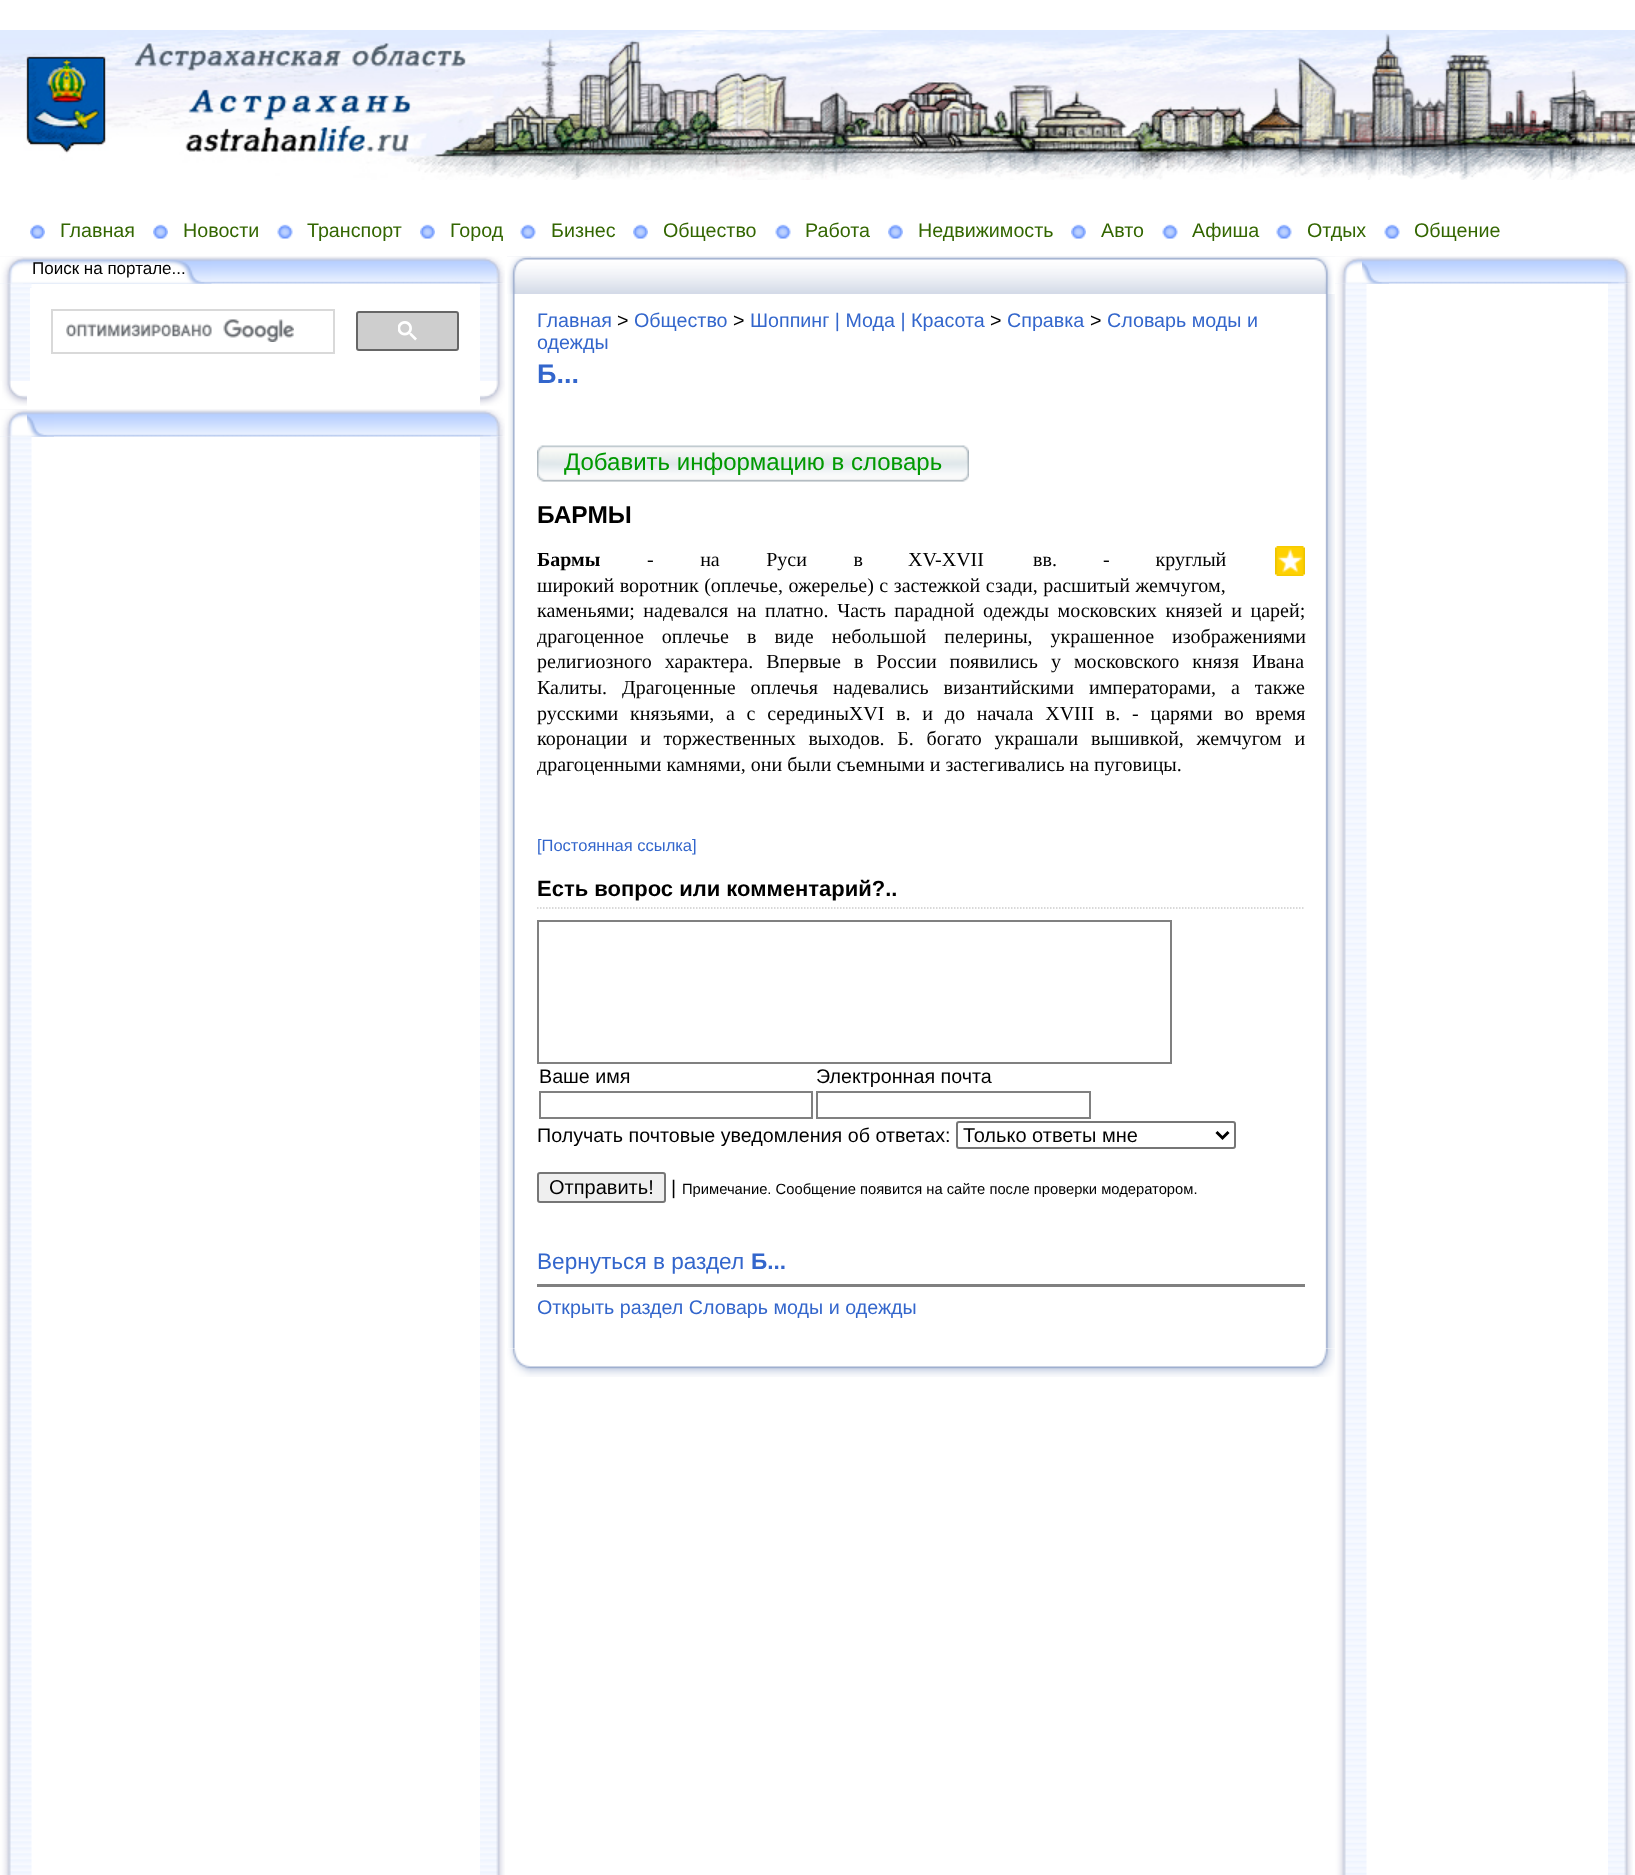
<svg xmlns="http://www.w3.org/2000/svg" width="1635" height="1875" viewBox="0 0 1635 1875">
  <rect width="100%" height="100%" fill="#ffffff"/>
  <image x="0" y="30" width="1635" height="150" href="img1.png"/>
  <image x="30" y="224" width="15" height="15" href="img2.png"/>
  <text x="60" y="237" font-family="Liberation Sans" font-size="19.7" fill="#336600">Главная</text>
  <image x="153" y="224" width="15" height="15" href="img2.png"/>
  <text x="183" y="237" font-family="Liberation Sans" font-size="19.7" fill="#336600">Новости</text>
  <image x="277" y="224" width="16" height="15" href="img3.png"/>
  <text x="307" y="237" font-family="Liberation Sans" font-size="19.7" fill="#336600">Транспорт</text>
  <image x="420" y="224" width="15" height="15" href="img4.png"/>
  <text x="450" y="237" font-family="Liberation Sans" font-size="19.7" fill="#336600">Город</text>
  <image x="520" y="224" width="16" height="15" href="img5.png"/>
  <text x="551" y="237" font-family="Liberation Sans" font-size="19.7" fill="#336600">Бизнес</text>
  <image x="633" y="224" width="15" height="15" href="img2.png"/>
  <text x="663" y="237" font-family="Liberation Sans" font-size="19.7" fill="#336600">Общество</text>
  <image x="775" y="224" width="16" height="15" href="img3.png"/>
  <text x="805" y="237" font-family="Liberation Sans" font-size="19.7" fill="#336600">Работа</text>
  <image x="888" y="224" width="15" height="15" href="img2.png"/>
  <text x="918" y="237" font-family="Liberation Sans" font-size="19.7" fill="#336600">Недвижимость</text>
  <image x="1071" y="224" width="15" height="15" href="img4.png"/>
  <text x="1101" y="237" font-family="Liberation Sans" font-size="19.7" fill="#336600">Авто</text>
  <image x="1162" y="224" width="16" height="15" href="img5.png"/>
  <text x="1192" y="237" font-family="Liberation Sans" font-size="19.7" fill="#336600">Афиша</text>
  <image x="1276" y="224" width="16" height="15" href="img6.png"/>
  <text x="1307" y="237" font-family="Liberation Sans" font-size="19.7" fill="#336600">Отдых</text>
  <image x="1384" y="224" width="16" height="15" href="img5.png"/>
  <text x="1414" y="237" font-family="Liberation Sans" font-size="19.7" fill="#336600">Общение</text>
  <image x="0" y="256" width="480" height="28" href="img7.png"/>
  <image x="0" y="259" width="212" height="25" href="img8.png"/>
  <image x="0" y="283" width="32" height="98" href="img11.png"/>
  <image x="0" y="256" width="23" height="28" href="img9.png"/>
  <text x="32" y="274" font-family="Liberation Sans" font-size="17" fill="#000000">Поиск на портале...</text>
  <image x="480" y="283" width="25" height="98" href="img14.png"/>
  <image x="480" y="256" width="25" height="28" href="img10.png"/>
  <rect x="30" y="288" width="2" height="93" fill="#ffffff"/>
  <rect x="52" y="310" width="282" height="43" fill="none" stroke="#d9d9d9" stroke-width="2"/>
  <image x="66" y="319" width="228" height="23" href="img12.png"/>
  <rect x="357" y="312" width="101" height="38" rx="2" fill="#cecece" stroke="#666666" stroke-width="2"/>
  <image x="398" y="321" width="19" height="20" href="img13.png"/>
  <image x="2" y="381" width="25" height="25" href="img15.png"/>
  <image x="480" y="381" width="25" height="25" href="img16.png"/>
  <image x="0" y="409" width="480" height="28" href="img17.png"/>
  <image x="0" y="412" width="54" height="25" href="img18.png"/>
  <image x="0" y="436" width="32" height="1439" href="img21.png"/>
  <image x="0" y="409" width="27" height="28" href="img19.png"/>
  <image x="480" y="436" width="25" height="1439" href="img22.png"/>
  <image x="480" y="409" width="25" height="28" href="img20.png"/>
  <image x="1335" y="256" width="273" height="28" href="img23.png"/>
  <image x="1335" y="259" width="54" height="25" href="img24.png"/>
  <image x="1335" y="283" width="32" height="1592" href="img27.png"/>
  <image x="1335" y="256" width="27" height="28" href="img25.png"/>
  <image x="1608" y="283" width="25" height="1592" href="img28.png"/>
  <image x="1608" y="256" width="25" height="28" href="img26.png"/>
  <image x="507" y="256" width="828" height="38" href="img29.png"/>
  <image x="1310" y="256" width="25" height="38" href="img30.png"/>
  <image x="507" y="256" width="24" height="38" href="img31.png"/>
  <image x="508" y="294" width="7" height="1055" href="img32.png"/>
  <image x="1325" y="294" width="10" height="1055" href="img33.png"/>
  <text x="537" y="327" font-family="Liberation Sans" font-size="19.7" fill="#3366cc">Главная</text>
  <text x="617" y="327" font-family="Liberation Sans" font-size="19.7" fill="#000000">&gt;</text>
  <text x="634" y="327" font-family="Liberation Sans" font-size="19.7" fill="#3366cc">Общество</text>
  <text x="733" y="327" font-family="Liberation Sans" font-size="19.7" fill="#000000">&gt;</text>
  <text x="750" y="327" font-family="Liberation Sans" font-size="19.7" fill="#3366cc">Шоппинг | Мода | Красота</text>
  <text x="990" y="327" font-family="Liberation Sans" font-size="19.7" fill="#000000">&gt;</text>
  <text x="1007" y="327" font-family="Liberation Sans" font-size="19.7" fill="#3366cc">Справка</text>
  <text x="1090" y="327" font-family="Liberation Sans" font-size="19.7" fill="#000000">&gt;</text>
  <text x="1107" y="327" font-family="Liberation Sans" font-size="19.7" fill="#3366cc">Словарь моды и</text>
  <text x="537" y="349" font-family="Liberation Sans" font-size="19.7" fill="#3366cc">одежды</text>
  <text x="537" y="383" font-family="Liberation Sans" font-size="27" font-weight="bold" fill="#3366cc">Б...</text>
  <image x="942" y="445" width="27" height="37" href="img34.png"/>
  <image x="537" y="445" width="405" height="37" href="img35.png"/>
  <text x="564" y="470" font-family="Liberation Sans" font-size="24" fill="#009900">Добавить информацию в словарь</text>
  <text x="537" y="523" font-family="Liberation Sans" font-size="24.5" font-weight="bold" fill="#000000">БАРМЫ</text>
  <image x="1275" y="546" width="30" height="30" href="img36.png"/>
  <text x="537" y="566" font-family="Liberation Serif" font-size="20" font-weight="bold" fill="#000000">Бармы</text>
  <text x="647" y="566" word-spacing="41.5" font-family="Liberation Serif" font-size="20" fill="#000000">- на Руси в</text>
  <text x="908" y="566" font-family="Liberation Serif" font-size="20" fill="#000000">XV-XVII</text>
  <text x="1033" y="566" word-spacing="41" font-family="Liberation Serif" font-size="20" fill="#000000">вв. - круглый</text>
  <text x="537" y="592" word-spacing="0.5" font-family="Liberation Serif" font-size="20" fill="#000000">широкий воротник (оплечье, ожерелье) с застежкой сзади, расшитый жемчугом,</text>
  <text x="537" y="617" word-spacing="3.6" font-family="Liberation Serif" font-size="20" fill="#000000">каменьями; надевался на платно. Часть парадной одежды московских князей и царей;</text>
  <text x="537" y="643" word-spacing="13" font-family="Liberation Serif" font-size="20" fill="#000000">драгоценное оплечье в виде небольшой пелерины, украшенное изображениями</text>
  <text x="537" y="668" word-spacing="8" font-family="Liberation Serif" font-size="20" fill="#000000">религиозного характера. Впервые в России появились у московского князя Ивана</text>
  <text x="537" y="694" word-spacing="10" font-family="Liberation Serif" font-size="20" fill="#000000">Калиты. Драгоценные оплечья надевались византийскими императорами, а также</text>
  <text x="537" y="720" word-spacing="6.75" font-family="Liberation Serif" font-size="20" fill="#000000">русскими князьями, а с серединыXVI в. и до начала XVIII в. - царями во время</text>
  <text x="537" y="745" word-spacing="7.75" font-family="Liberation Serif" font-size="20" fill="#000000">коронации и торжественных выходов. Б. богато украшали вышивкой, жемчугом и</text>
  <text x="537" y="771" font-family="Liberation Serif" font-size="20" fill="#000000">драгоценными камнями, они были съемными и застегивались на пуговицы.</text>
  <text x="537" y="851" font-family="Liberation Sans" font-size="16.5" fill="#3366cc">[Постоянная ссылка]</text>
  <path d="M537 908H1305" fill="none" stroke="#cdcdcd" stroke-width="1.5" stroke-dasharray="1.5 1.5"/>
  <text x="537" y="896" font-family="Liberation Sans" font-size="22" font-weight="bold" fill="#000000">Есть вопрос или комментарий?..</text>
  <rect x="538" y="921" width="633" height="142" fill="none" stroke="#808080" stroke-width="2"/>
  <text x="539" y="1083" font-family="Liberation Sans" font-size="19.7" fill="#000000">Ваше имя</text>
  <text x="816" y="1083" font-family="Liberation Sans" font-size="19.7" fill="#000000">Электронная почта</text>
  <rect x="540" y="1092" width="272" height="26" fill="none" stroke="#808080" stroke-width="2"/>
  <rect x="817" y="1092" width="273" height="26" fill="none" stroke="#808080" stroke-width="2"/>
  <text x="537" y="1142" font-family="Liberation Sans" font-size="19.7" fill="#000000">Получать почтовые уведомления об ответах:</text>
  <rect x="957" y="1122" width="278" height="26" rx="2" fill="none" stroke="#767676" stroke-width="2"/>
  <path d="M1216.5 1132L1222.5 1138L1228.5 1132" fill="none" stroke="#000000" stroke-width="3"/>
  <text x="963" y="1142" font-family="Liberation Sans" font-size="20" fill="#000000">Только ответы мне</text>
  <rect x="538" y="1173" width="127" height="29" rx="2" fill="#efefef" stroke="#767676" stroke-width="2"/>
  <text x="549" y="1194" font-family="Liberation Sans" font-size="20" fill="#000000">Отправить!</text>
  <text x="671" y="1194" font-family="Liberation Sans" font-size="19.7" fill="#000000">|</text>
  <text x="682" y="1194" font-family="Liberation Sans" font-size="14.75" fill="#000000">Примечание. Сообщение появится на сайте после проверки модератором.</text>
  <text x="537" y="1269" font-family="Liberation Sans" font-size="22.6" fill="#3366cc">Вернуться в раздел</text>
  <text x="751" y="1269" font-family="Liberation Sans" font-size="22.6" font-weight="bold" fill="#3366cc">Б...</text>
  <rect x="537" y="1284" width="768" height="3" fill="#808080"/>
  <text x="537" y="1314" font-family="Liberation Sans" font-size="19.7" fill="#3366cc">Открыть раздел Словарь моды и одежды</text>
  <image x="507" y="1348" width="828" height="29" href="img37.png"/>
  <image x="1312" y="1348" width="23" height="29" href="img38.png"/>
  <image x="507" y="1348" width="23" height="29" href="img39.png"/>
</svg>
